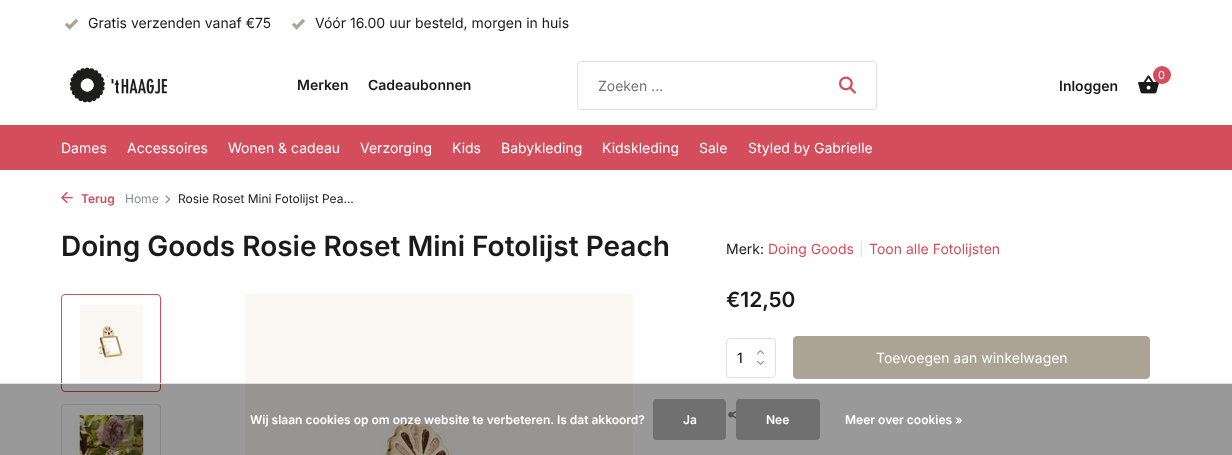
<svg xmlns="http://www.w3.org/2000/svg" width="1232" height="455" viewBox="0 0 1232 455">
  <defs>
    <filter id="blur1" x="-50%" y="-200%" width="200%" height="500%"><feGaussianBlur stdDeviation="1"/></filter>
  </defs>
  <rect width="100%" height="100%" fill="#ffffff"/>
  <image x="65" y="18" width="14" height="12" href="img1.png"/>
  <text x="88" y="28" font-family="Inter" font-size="14" fill="#1a1a1a">Gratis verzenden vanaf €75</text>
  <image x="292" y="18" width="14" height="12" href="img1.png"/>
  <text x="315" y="28" font-family="Inter" font-size="14" fill="#1a1a1a">Vóór 16.00 uur besteld, morgen in huis</text>
  <image x="69" y="67" width="99" height="36" href="img2.png"/>
  <text x="297" y="90" font-family="Inter" font-size="14" font-weight="600" fill="#1a1a1a">Merken</text>
  <text x="368" y="90" font-family="Inter" font-size="14" font-weight="600" fill="#1a1a1a">Cadeaubonnen</text>
  <rect x="577.5" y="61.5" width="299" height="48" rx="3.5" fill="none" stroke="#e1e1e1"/>
  <text x="598" y="91" font-family="Inter" font-size="14" fill="#757575">Zoeken ...</text>
  <image x="839" y="76" width="18" height="18" href="img3.png"/>
  <image x="1138" y="75" width="21" height="19" href="img4.png"/>
  <rect x="1153" y="68" width="18" height="18" rx="9" fill="#000000" fill-opacity="0.06" filter="url(#blur1)"/>
  <circle cx="1162" cy="75" r="9" fill="#d34d5c"/>
  <text x="1158" y="79" font-family="Inter" font-size="11" fill="#ffffff">0</text>
  <text x="1059" y="91" font-family="Inter" font-size="14" font-weight="600" fill="#1a1a1a">Inloggen</text>
  <rect x="0" y="125" width="1232" height="45" fill="#d34d5c"/>
  <text x="61" y="153" font-family="Inter" font-size="14" fill="#ffffff">Dames</text>
  <text x="127" y="153" font-family="Inter" font-size="14" fill="#ffffff">Accessoires</text>
  <text x="228" y="153" font-family="Inter" font-size="14" fill="#ffffff">Wonen &amp; cadeau</text>
  <text x="360" y="153" font-family="Inter" font-size="14" fill="#ffffff">Verzorging</text>
  <text x="452" y="153" font-family="Inter" font-size="14" fill="#ffffff">Kids</text>
  <text x="501" y="153" font-family="Inter" font-size="14" fill="#ffffff">Babykleding</text>
  <text x="602" y="153" font-family="Inter" font-size="14" fill="#ffffff">Kidskleding</text>
  <text x="699" y="153" font-family="Inter" font-size="14" fill="#ffffff">Sale</text>
  <text x="748" y="153" font-family="Inter" font-size="14" fill="#ffffff">Styled by Gabrielle</text>
  <image x="61" y="191" width="12" height="13" href="img5.png"/>
  <text x="81" y="203" font-family="Inter" font-size="12" font-weight="600" fill="#d34d5c">Terug</text>
  <text x="125" y="203" font-family="Inter" font-size="12" fill="#898d93">Home</text>
  <image x="165" y="195" width="6" height="9" href="img6.png"/>
  <text x="178" y="203" font-family="Inter" font-size="12" fill="#1a1a1a">Rosie Roset Mini Fotolijst Pea...</text>
  <text x="61" y="256" font-family="Inter" font-size="28" font-weight="600" fill="#1a1a1a">Doing Goods Rosie Roset Mini Fotolijst Peach</text>
  <rect x="61.5" y="294.5" width="99" height="97" rx="3.5" fill="none" stroke="#d34d5c"/>
  <image x="80" y="305" width="63" height="76" href="img7.png"/>
  <rect x="61.5" y="404.5" width="99" height="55" rx="3.5" fill="none" stroke="#e1e1e1"/>
  <image x="73" y="415" width="76" height="40" href="img8.png"/>
  <image x="245" y="294" width="388" height="161" href="img9.png"/>
  <text x="726" y="254" font-family="Inter" font-size="14" fill="#1a1a1a">Merk:</text>
  <text x="768" y="254" font-family="Inter" font-size="14" fill="#d34d5c">Doing Goods</text>
  <text x="859" y="254" font-family="Inter" font-size="14" fill="#e1e1e1">|</text>
  <text x="869" y="254" font-family="Inter" font-size="14" fill="#d34d5c">Toon alle Fotolijsten</text>
  <text x="726" y="307" font-family="Inter" font-size="21" font-weight="600" fill="#1a1a1a">€12,50</text>
  <rect x="726.5" y="338.5" width="49" height="39" rx="3.5" fill="none" stroke="#e1e1e1"/>
  <text x="737" y="363" font-family="Inter" font-size="14" fill="#000000">1</text>
  <image x="757" y="350" width="7" height="5" href="img10.png"/>
  <image x="757" y="360" width="7" height="5" href="img11.png"/>
  <rect x="793.5" y="336.5" width="356" height="42" rx="3.5" fill="#aba393" stroke="#aba393"/>
  <text x="876" y="363" font-family="Inter" font-size="14" fill="#ffffff">Toevoegen aan winkelwagen</text>
  <image x="728" y="410" width="8" height="9" href="img12.png"/>
  <rect x="0" y="384" width="1232" height="71" fill="#000000" fill-opacity="0.4"/>
  <rect x="0" y="383" width="1232" height="1" fill="#e1e1e1"/>
  <text x="250" y="424" font-family="Inter" font-size="12" font-weight="600" fill="#ffffff">Wij slaan cookies op om onze website te verbeteren. Is dat akkoord?</text>
  <rect x="653" y="399" width="73" height="41" rx="4" fill="#707070"/>
  <text x="683" y="424" font-family="Inter" font-size="12" font-weight="600" fill="#ffffff">Ja</text>
  <rect x="736" y="399" width="84" height="41" rx="4" fill="#707070"/>
  <text x="766" y="424" font-family="Inter" font-size="12" font-weight="600" fill="#ffffff">Nee</text>
  <text x="845" y="424" font-family="Inter" font-size="12" font-weight="600" fill="#ffffff">Meer over cookies »</text>
</svg>
